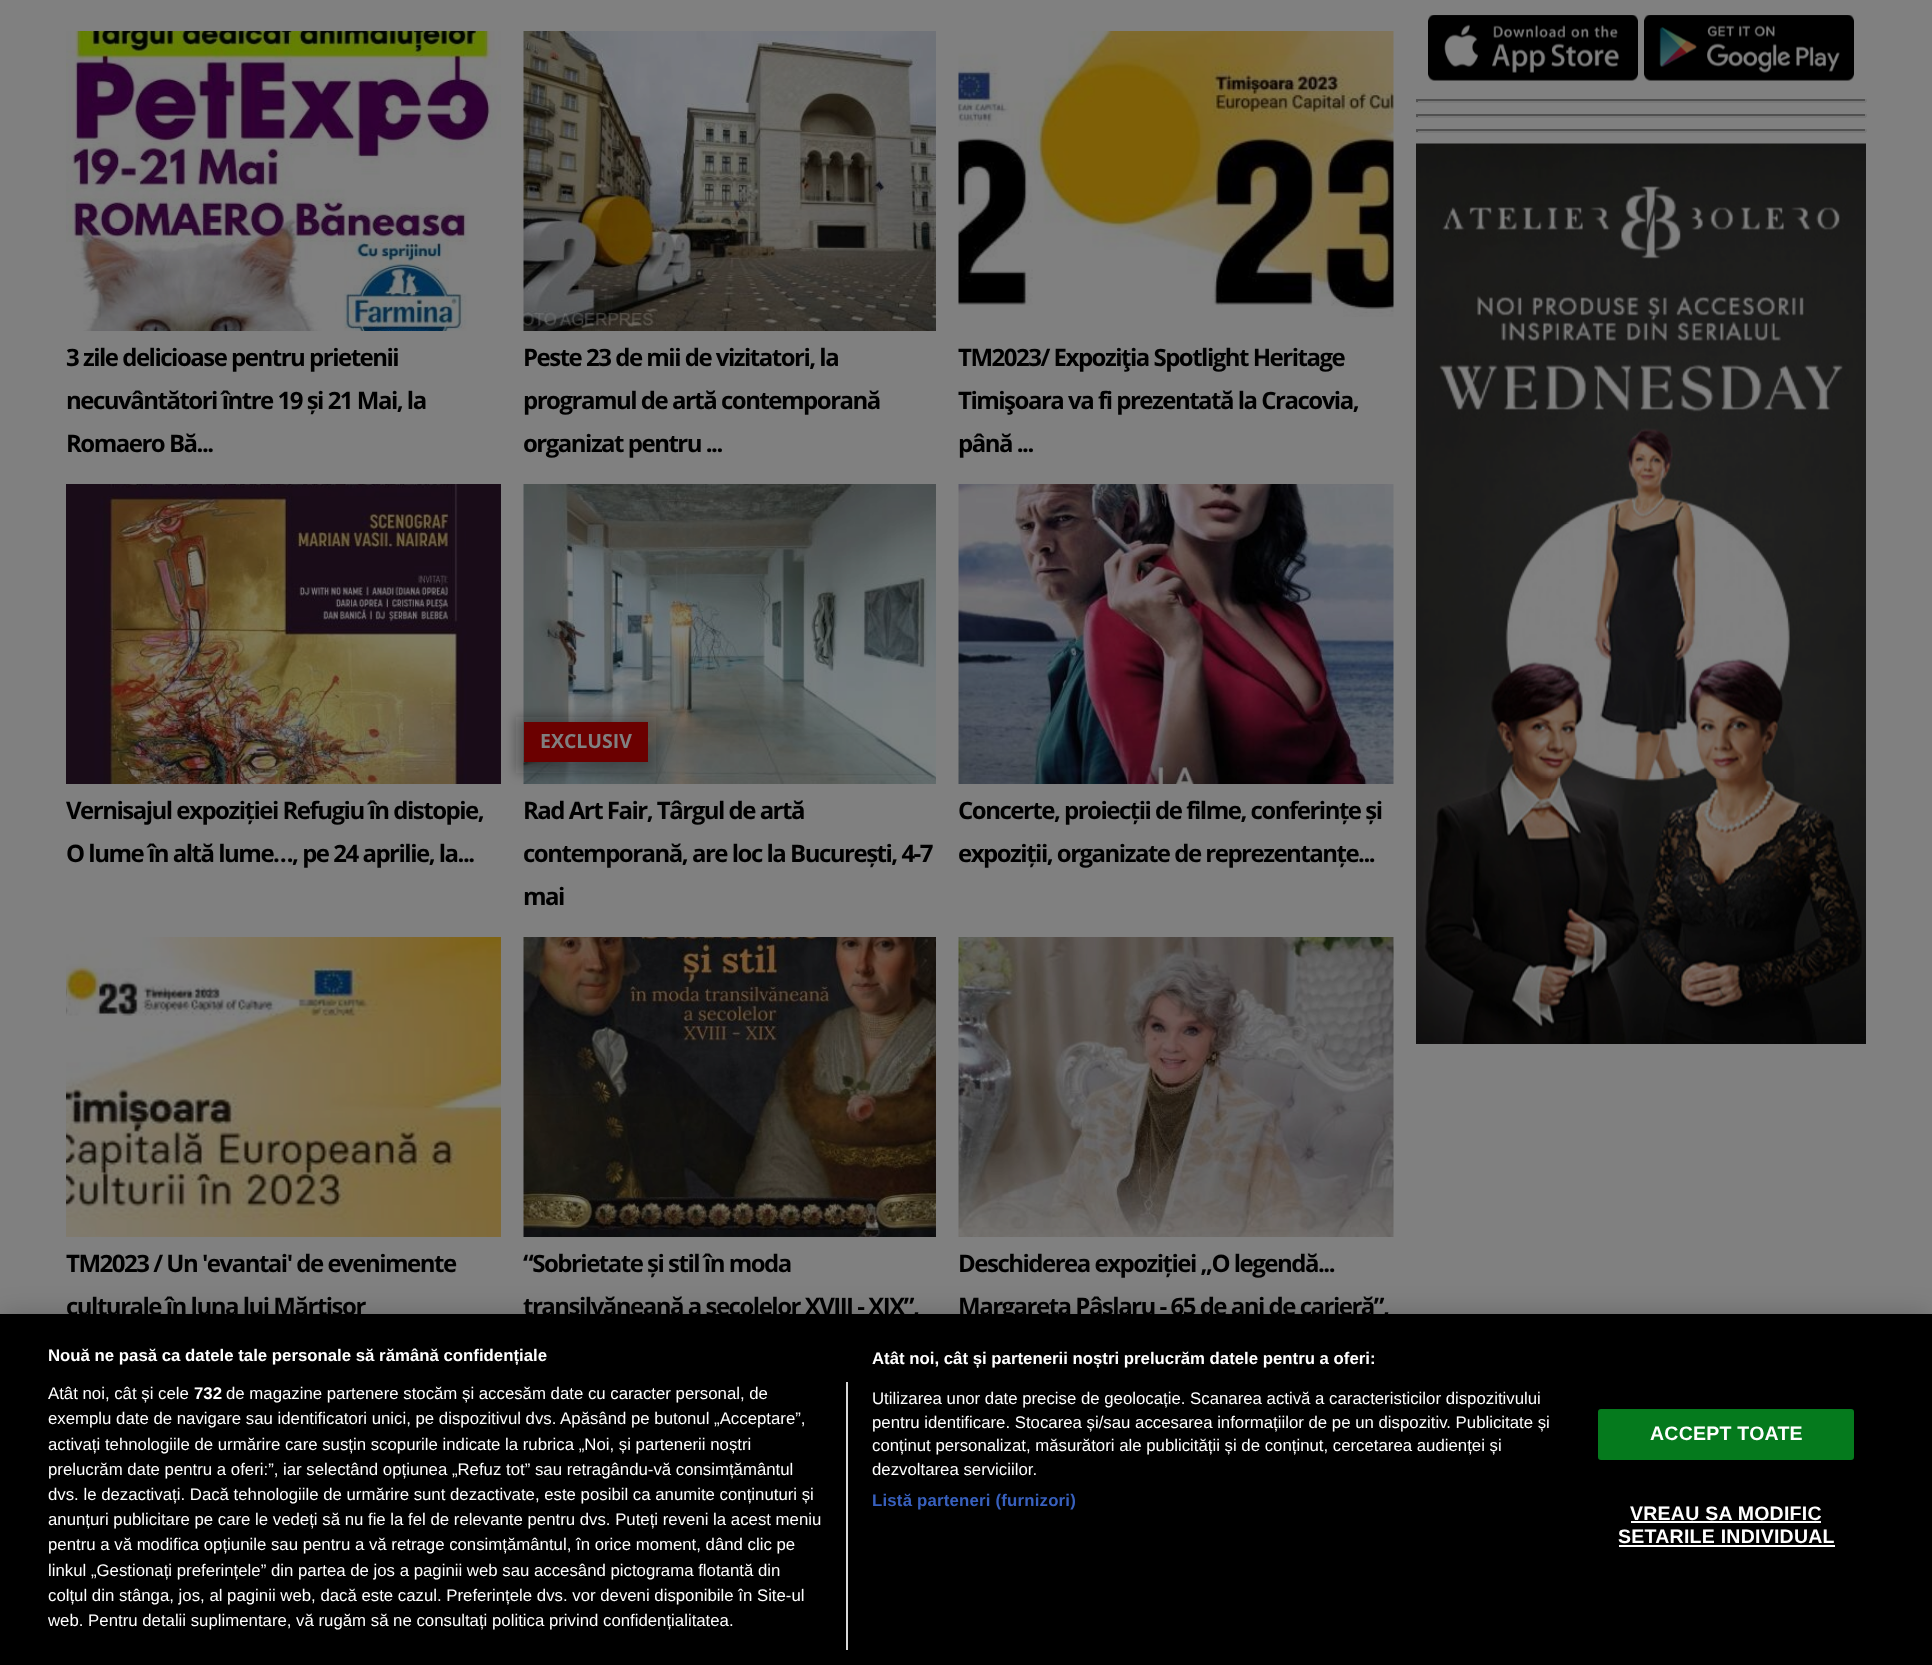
<svg xmlns="http://www.w3.org/2000/svg" width="1932" height="1665" viewBox="0 0 1932 1665">
  <defs>
    <filter id="blur1" x="-50%" y="-200%" width="200%" height="500%"><feGaussianBlur stdDeviation="6"/></filter>
    <filter id="blur2" x="-50%" y="-200%" width="200%" height="500%"><feGaussianBlur stdDeviation="13.5"/></filter>
  </defs>
  <rect width="100%" height="100%" fill="#808080"/>
  <image x="66" y="31" width="435" height="300" href="img1.png"/>
  <text x="66" y="366" font-family="Open Sans" font-size="24" font-weight="bold" letter-spacing="-1.5" fill="#000000">3 zile delicioase pentru prietenii</text>
  <text x="66" y="409" font-family="Open Sans" font-size="24" font-weight="bold" letter-spacing="-1.5" fill="#000000">necuvântători între 19 și 21 Mai, la</text>
  <text x="66" y="452" font-family="Open Sans" font-size="24" font-weight="bold" letter-spacing="-1.5" fill="#000000">Romaero Bă...</text>
  <image x="523" y="31" width="413" height="300" href="img2.png"/>
  <text x="523" y="366" font-family="Open Sans" font-size="24" font-weight="bold" letter-spacing="-1.5" fill="#000000">Peste 23 de mii de vizitatori, la</text>
  <text x="523" y="409" font-family="Open Sans" font-size="24" font-weight="bold" letter-spacing="-1.5" fill="#000000">programul de artă contemporană</text>
  <text x="523" y="452" font-family="Open Sans" font-size="24" font-weight="bold" letter-spacing="-1.5" fill="#000000">organizat pentru ...</text>
  <image x="958" y="31" width="436" height="286" href="img3.png"/>
  <text x="958" y="366" font-family="Open Sans" font-size="24" font-weight="bold" letter-spacing="-1.5" fill="#000000">TM2023/ Expoziţia Spotlight Heritage</text>
  <text x="958" y="409" font-family="Open Sans" font-size="24" font-weight="bold" letter-spacing="-1.5" fill="#000000">Timişoara va fi prezentată la Cracovia,</text>
  <text x="958" y="452" font-family="Open Sans" font-size="24" font-weight="bold" letter-spacing="-1.5" fill="#000000">până ...</text>
  <image x="66" y="484" width="435" height="300" href="img4.png"/>
  <text x="66" y="819" font-family="Open Sans" font-size="24" font-weight="bold" letter-spacing="-1.5" fill="#000000">Vernisajul expoziției Refugiu în distopie,</text>
  <text x="66" y="862" font-family="Open Sans" font-size="24" font-weight="bold" letter-spacing="-1.5" fill="#000000">O lume în altă lume…, pe 24 aprilie, la...</text>
  <image x="523" y="484" width="413" height="300" href="img5.png"/>
  <rect x="516" y="717" width="140" height="56" fill="#181818" fill-opacity="0.34" filter="url(#blur1)"/>
  <rect x="524" y="722" width="124" height="40" fill="#6b0000"/>
  <text x="540" y="748" font-family="Open Sans" font-size="19.5" font-weight="bold" fill="#808080">EXCLUSIV</text>
  <text x="523" y="819" font-family="Open Sans" font-size="24" font-weight="bold" letter-spacing="-1.5" fill="#000000">Rad Art Fair, Târgul de artă</text>
  <text x="523" y="862" font-family="Open Sans" font-size="24" font-weight="bold" letter-spacing="-1.5" fill="#000000">contemporană, are loc la București, 4-7</text>
  <text x="523" y="905" font-family="Open Sans" font-size="24" font-weight="bold" letter-spacing="-1.5" fill="#000000">mai</text>
  <image x="958" y="484" width="436" height="300" href="img6.png"/>
  <text x="958" y="819" font-family="Open Sans" font-size="24" font-weight="bold" letter-spacing="-1.5" fill="#000000">Concerte, proiecții de filme, conferințe și</text>
  <text x="958" y="862" font-family="Open Sans" font-size="24" font-weight="bold" letter-spacing="-1.5" fill="#000000">expoziții, organizate de reprezentanțe...</text>
  <image x="66" y="937" width="435" height="300" href="img7.png"/>
  <text x="66" y="1272" font-family="Open Sans" font-size="24" font-weight="bold" letter-spacing="-1.5" fill="#000000">TM2023 / Un 'evantai' de evenimente</text>
  <text x="66" y="1315" font-family="Open Sans" font-size="24" font-weight="bold" letter-spacing="-1.5" fill="#000000">culturale în luna lui Mărţişor</text>
  <image x="523" y="937" width="413" height="300" href="img8.png"/>
  <text x="523" y="1272" font-family="Open Sans" font-size="24" font-weight="bold" letter-spacing="-1.5" fill="#000000">“Sobrietate și stil în moda</text>
  <text x="523" y="1315" font-family="Open Sans" font-size="24" font-weight="bold" letter-spacing="-1.5" fill="#000000">transilvăneană a secolelor XVIII - XIX”,</text>
  <image x="958" y="937" width="436" height="300" href="img9.png"/>
  <text x="958" y="1272" font-family="Open Sans" font-size="24" font-weight="bold" letter-spacing="-1.5" fill="#000000">Deschiderea expoziției „O legendă...</text>
  <text x="958" y="1315" font-family="Open Sans" font-size="24" font-weight="bold" letter-spacing="-1.5" fill="#000000">Margareta Pâslaru - 65 de ani de carieră”,</text>
  <image x="1428" y="15" width="210" height="66" href="img10.png"/>
  <image x="1644" y="15" width="210" height="66" href="img11.png"/>
  <rect x="1416" y="99" width="450" height="2" fill="#505050"/>
  <rect x="1865" y="99" width="2" height="3" fill="#777777"/>
  <rect x="1416" y="101" width="450" height="2" fill="#777777"/>
  <rect x="1416" y="99" width="2" height="3" fill="#505050"/>
  <rect x="1416" y="114" width="450" height="2" fill="#505050"/>
  <rect x="1865" y="114" width="2" height="3" fill="#777777"/>
  <rect x="1416" y="116" width="450" height="2" fill="#777777"/>
  <rect x="1416" y="114" width="2" height="3" fill="#505050"/>
  <rect x="1416" y="129" width="450" height="2" fill="#505050"/>
  <rect x="1865" y="129" width="2" height="3" fill="#777777"/>
  <rect x="1416" y="131" width="450" height="2" fill="#777777"/>
  <rect x="1416" y="129" width="2" height="3" fill="#505050"/>
  <image x="1416" y="143" width="450" height="901" href="img12.png"/>
  <rect x="0" y="1314" width="1932" height="351" fill="#000000" fill-opacity="0.2" filter="url(#blur2)"/>
  <rect x="0" y="1314" width="1932" height="351" fill="#000000"/>
  <text x="48" y="1361" font-family="Liberation Sans" font-size="16.8" font-weight="bold" fill="#ffffff">Nouă ne pasă ca datele tale personale să rămână confidențiale</text>
  <text x="872" y="1364" font-family="Liberation Sans" font-size="16.8" font-weight="bold" fill="#ffffff">Atât noi, cât și partenerii noștri prelucrăm datele pentru a oferi:</text>
  <text x="872" y="1404" font-family="Liberation Sans" font-size="16.8" fill="#ffffff">Utilizarea unor date precise de geolocație. Scanarea activă a caracteristicilor dispozitivului</text>
  <text x="872" y="1428" font-family="Liberation Sans" font-size="16.8" fill="#ffffff">pentru identificare. Stocarea și/sau accesarea informațiilor de pe un dispozitiv. Publicitate și</text>
  <text x="872" y="1451" font-family="Liberation Sans" font-size="16.8" fill="#ffffff">conținut personalizat, măsurători ale publicității și de conținut, cercetarea audienței și</text>
  <text x="872" y="1475" font-family="Liberation Sans" font-size="16.8" fill="#ffffff">dezvoltarea serviciilor.</text>
  <text x="872" y="1506" font-family="Liberation Sans" font-size="16.8" font-weight="bold" letter-spacing="0.2" fill="#3860be">Listă parteneri (furnizori)</text>
  <rect x="846" y="1382" width="2" height="268" fill="#d8d8d8"/>
  <text x="48" y="1399" font-family="Liberation Sans" font-size="16.8" fill="#ffffff">Atât noi, cât și cele</text>
  <text x="194" y="1399" font-family="Liberation Sans" font-size="16.8" font-weight="bold" fill="#ffffff">732</text>
  <text x="226" y="1399" font-family="Liberation Sans" font-size="16.8" fill="#ffffff">de magazine partenere stocăm și accesăm date cu caracter personal, de</text>
  <text x="48" y="1424" font-family="Liberation Sans" font-size="16.8" fill="#ffffff">exemplu date de navigare sau identificatori unici, pe dispozitivul dvs. Apăsând pe butonul „Acceptare”,</text>
  <text x="48" y="1450" font-family="Liberation Sans" font-size="16.8" fill="#ffffff">activați tehnologiile de urmărire care susțin scopurile indicate la rubrica „Noi, și partenerii noștri</text>
  <text x="48" y="1475" font-family="Liberation Sans" font-size="16.8" fill="#ffffff">prelucrăm date pentru a oferi:”, iar selectând opțiunea „Refuz tot” sau retragându-vă consimțământul</text>
  <text x="48" y="1500" font-family="Liberation Sans" font-size="16.8" fill="#ffffff">dvs. le dezactivați. Dacă tehnologiile de urmărire sunt dezactivate, este posibil ca anumite conținuturi și</text>
  <text x="48" y="1525" font-family="Liberation Sans" font-size="16.8" fill="#ffffff">anunțuri publicitare pe care le vedeți să nu fie la fel de relevante pentru dvs. Puteți reveni la acest meniu</text>
  <text x="48" y="1550" font-family="Liberation Sans" font-size="16.8" fill="#ffffff">pentru a vă modifica opțiunile sau pentru a vă retrage consimțământul, în orice moment, dând clic pe</text>
  <text x="48" y="1576" font-family="Liberation Sans" font-size="16.8" fill="#ffffff">linkul „Gestionați preferințele” din partea de jos a paginii web sau accesând pictograma flotantă din</text>
  <text x="48" y="1601" font-family="Liberation Sans" font-size="16.8" fill="#ffffff">colțul din stânga, jos, al paginii web, dacă este cazul. Preferințele dvs. vor deveni disponibile în Site-ul</text>
  <text x="48" y="1626" font-family="Liberation Sans" font-size="16.8" fill="#ffffff">web. Pentru detalii suplimentare, vă rugăm să ne consultați politica privind confidențialitatea.</text>
  <rect x="1599" y="1410" width="254" height="49" rx="2" fill="#057a1d" stroke="#057a1d" stroke-width="2"/>
  <text x="1650" y="1440" font-family="Liberation Sans" font-size="19.5" font-weight="bold" letter-spacing="0.25" fill="#ffffff">ACCEPT TOATE</text>
  <text x="1630" y="1520" font-family="Liberation Sans" font-size="19.5" font-weight="bold" letter-spacing="0.25" fill="#ffffff">VREAU SA MODIFIC</text>
  <rect x="1631" y="1521" width="190" height="2" fill="#ffffff"/>
  <text x="1618" y="1543" font-family="Liberation Sans" font-size="19.5" font-weight="bold" letter-spacing="0.25" fill="#ffffff">SETARILE INDIVIDUAL</text>
  <rect x="1619" y="1545" width="216" height="2" fill="#ffffff"/>
</svg>
